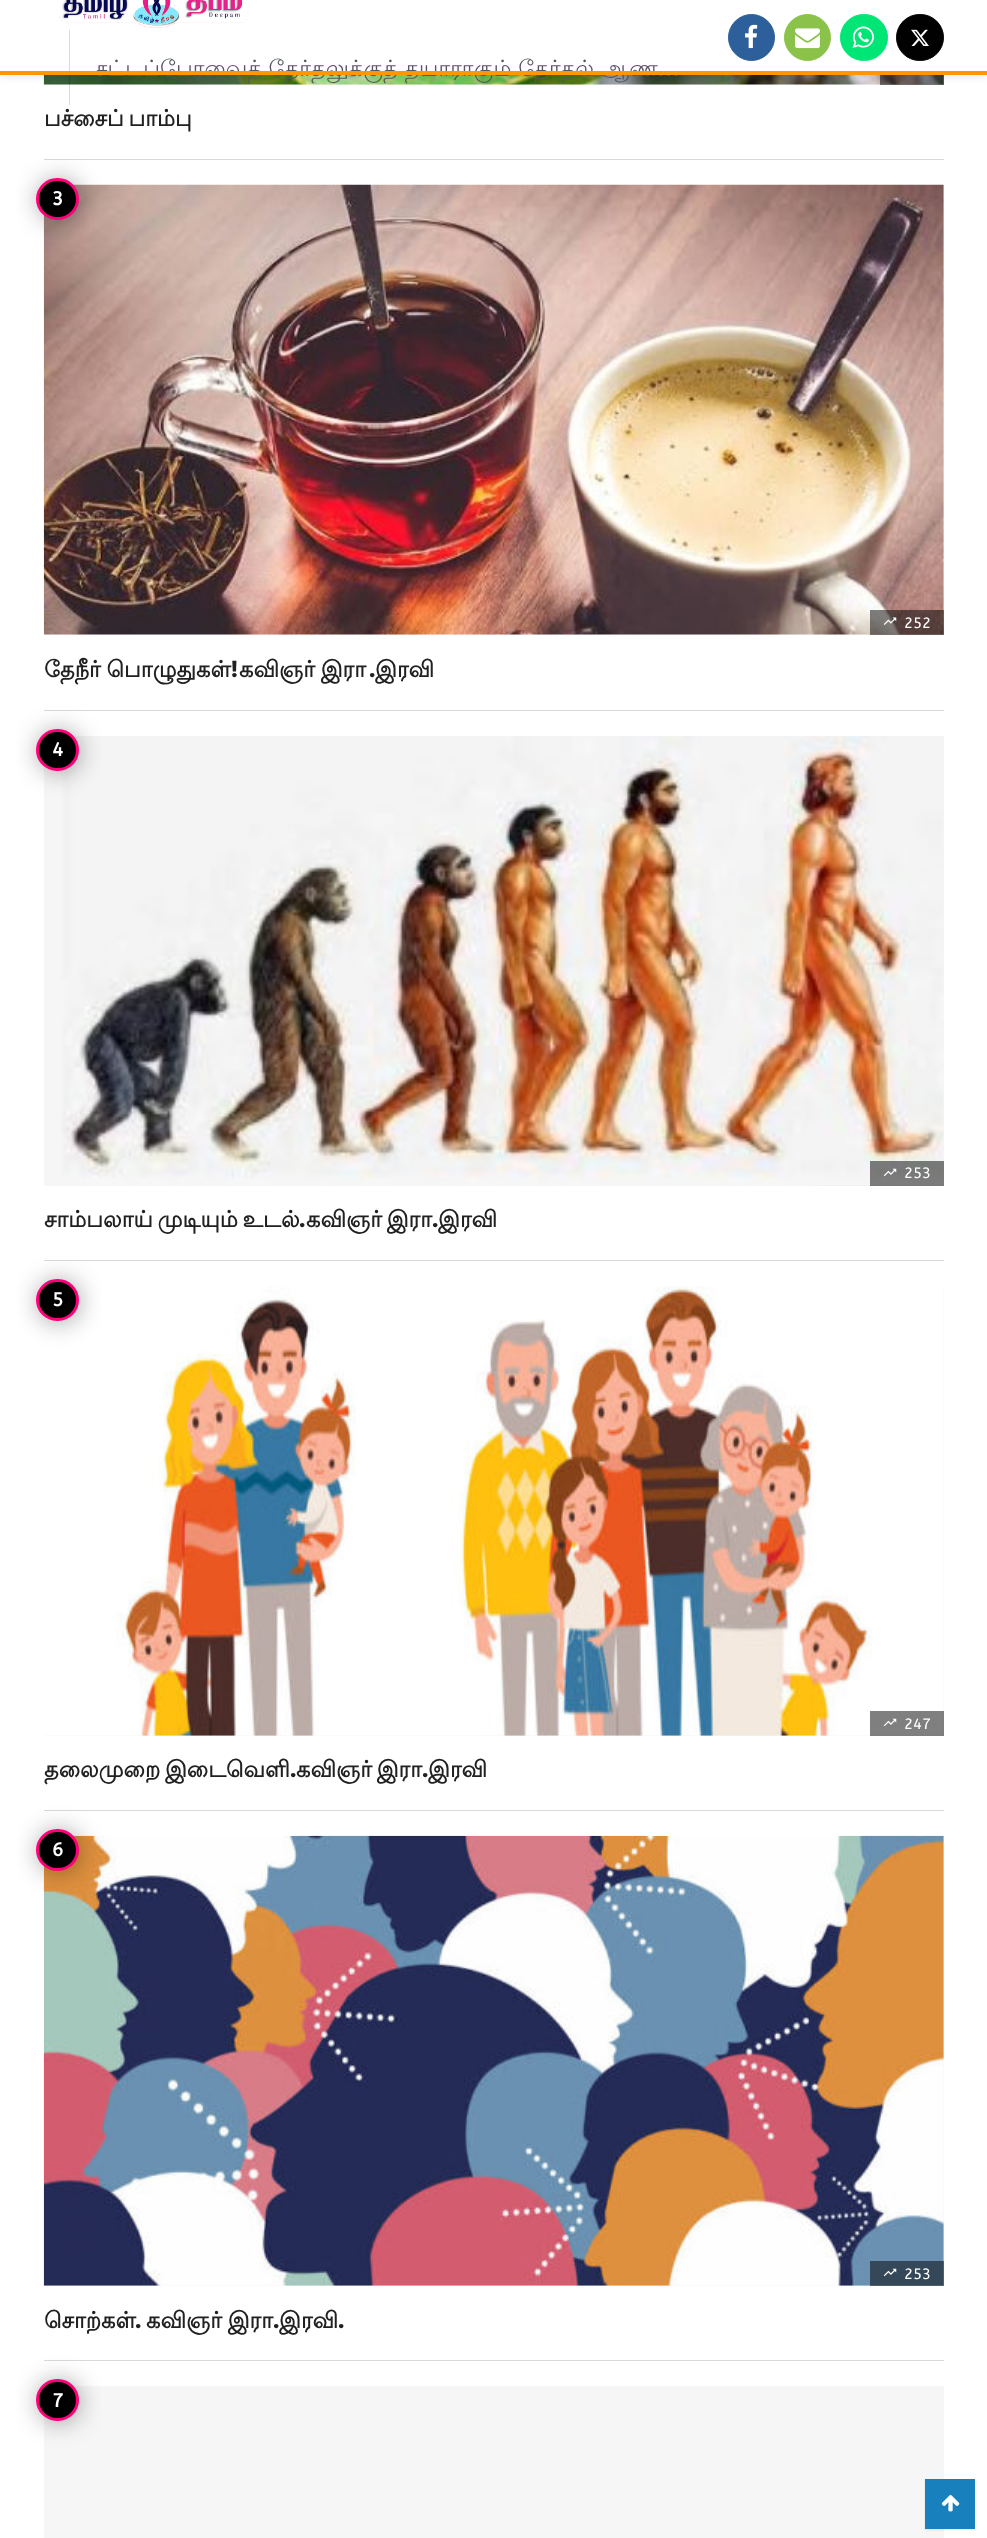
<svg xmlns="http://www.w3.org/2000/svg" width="987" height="2538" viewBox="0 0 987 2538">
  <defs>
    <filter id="blur1" x="-50%" y="-200%" width="200%" height="500%"><feGaussianBlur stdDeviation="5"/></filter>
    <filter id="blur2" x="-50%" y="-200%" width="200%" height="500%"><feGaussianBlur stdDeviation="12.5"/></filter>
    <filter id="blur3" x="-50%" y="-200%" width="200%" height="500%"><feGaussianBlur stdDeviation="1"/></filter>
  </defs>
  <rect width="100%" height="100%" fill="#ffffff"/>
  <rect x="44" y="75" width="900" height="10" fill="#f6f6f6"/>
  <image x="43" y="75" width="901" height="10" href="img6.png"/>
  <rect x="880" y="75" width="64" height="10" fill="#000000" fill-opacity="0.5"/>
  <rect x="0" y="1" width="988" height="75" fill="#000000" fill-opacity="0.1" filter="url(#blur1)"/>
  <rect x="0" y="0" width="987" height="71" fill="#ffffff"/>
  <circle cx="751.5" cy="37.5" r="23" fill="#2d5f9a" stroke="#2d5f9a"/>
  <image x="745" y="24" width="13" height="25" href="img1.png"/>
  <circle cx="807.5" cy="37.5" r="23" fill="#8bc34a" stroke="#8bc34a"/>
  <image x="795" y="28" width="25" height="21" href="img2.png"/>
  <rect x="840.5" y="14.5" width="47" height="46" rx="23" fill="#00e676" stroke="#00e676"/>
  <image x="852" y="26" width="22" height="22" href="img3.png"/>
  <rect x="896.5" y="14.5" width="47" height="46" rx="23" fill="#010101" stroke="#010101"/>
  <image x="911" y="29" width="18" height="17" href="img4.png"/>
  <image x="58" y="0" width="191" height="28" href="img5.png"/>
  <rect x="69" y="30" width="1" height="75" fill="#000000" fill-opacity="0.15"/>
  <text x="95" y="76" font-family="Lohit Tamil" font-size="22.5" fill="#53585c">சட்டப்பேரவைத் தேர்தலுக்குத் தயாராகும் தேர்தல் ஆண…</text>
  <rect x="0" y="71" width="987" height="4" fill="#ff9800"/>
  <rect x="44" y="159" width="900" height="1" fill="#d9d9d9"/>
  <text x="44" y="126" word-spacing="-2" font-family="Lohit Tamil" font-size="22.5" font-weight="bold" fill="#212121">பச்சைப் பாம்பு</text>
  <rect x="44" y="710" width="900" height="1" fill="#d9d9d9"/>
  <rect x="44" y="185" width="900" height="450" fill="#f6f6f6"/>
  <image x="43" y="184" width="901" height="451" href="img7.png"/>
  <rect x="38" y="179" width="42" height="42" rx="21" fill="#000000" fill-opacity="0.35" filter="url(#blur2)"/>
  <rect x="37.5" y="179.5" width="40" height="39" rx="19.5" fill="#000000" stroke="#ff007a" stroke-width="3"/>
  <text x="52" y="205" font-family="ABeeZee" font-size="19" font-weight="bold" fill="#ffffff">3</text>
  <rect x="870" y="610" width="74" height="25" fill="#000000" fill-opacity="0.5"/>
  <image x="883" y="617" width="14" height="8" href="img8.png"/>
  <text x="904" y="628" font-family="ABeeZee" font-size="15" fill="#ffffff">252</text>
  <text x="44" y="677" word-spacing="-1" font-family="Lohit Tamil" font-size="22.5" font-weight="bold" fill="#212121">தேநீர் பொழுதுகள்</text>
  <text x="230" y="677" font-family="Poppins" font-size="22.5" font-weight="bold" fill="#212121">!</text>
  <text x="239" y="677" word-spacing="-1" font-family="Lohit Tamil" font-size="22.5" font-weight="bold" fill="#212121">கவிஞர் இரா</text>
  <text x="369" y="677" font-family="Poppins" font-size="22.5" font-weight="bold" fill="#212121">.</text>
  <text x="375" y="677" font-family="Lohit Tamil" font-size="22.5" font-weight="bold" fill="#212121">இரவி</text>
  <rect x="44" y="1260" width="900" height="1" fill="#d9d9d9"/>
  <rect x="44" y="736" width="900" height="450" fill="#f6f6f6"/>
  <image x="814" y="1185" width="129" height="1" href="img9.png"/>
  <image x="61" y="736" width="883" height="449" href="img10.png"/>
  <rect x="38" y="730" width="42" height="43" rx="21" fill="#000000" fill-opacity="0.35" filter="url(#blur2)"/>
  <rect x="37.5" y="730.5" width="40" height="39" rx="19.5" fill="#000000" stroke="#ff007a" stroke-width="3"/>
  <text x="52" y="756" font-family="ABeeZee" font-size="19" font-weight="bold" fill="#ffffff">4</text>
  <rect x="870" y="1161" width="74" height="25" fill="#000000" fill-opacity="0.5"/>
  <image x="883" y="1168" width="14" height="9" href="img11.png"/>
  <text x="904" y="1178" font-family="ABeeZee" font-size="15" fill="#ffffff">253</text>
  <text x="44" y="1227" word-spacing="-2" font-family="Lohit Tamil" font-size="22.5" font-weight="bold" fill="#212121">சாம்பலாய் முடியும் உடல்</text>
  <text x="299" y="1227" font-family="Poppins" font-size="22.5" font-weight="bold" fill="#212121">.</text>
  <text x="306" y="1227" word-spacing="-2" font-family="Lohit Tamil" font-size="22.5" font-weight="bold" fill="#212121">கவிஞர் இரா</text>
  <text x="432" y="1227" font-family="Poppins" font-size="22.5" font-weight="bold" fill="#212121">.</text>
  <text x="438" y="1227" font-family="Lohit Tamil" font-size="22.5" font-weight="bold" fill="#212121">இரவி</text>
  <rect x="44" y="1810" width="900" height="1" fill="#d9d9d9"/>
  <rect x="44" y="1286" width="900" height="450" fill="#f6f6f6"/>
  <image x="44" y="1286" width="900" height="450" href="img12.png"/>
  <rect x="38" y="1280" width="42" height="43" rx="21" fill="#000000" fill-opacity="0.35" filter="url(#blur2)"/>
  <rect x="37.5" y="1280.5" width="40" height="39" rx="19.5" fill="#000000" stroke="#ff007a" stroke-width="3"/>
  <text x="52" y="1306" font-family="ABeeZee" font-size="19" font-weight="bold" fill="#ffffff">5</text>
  <rect x="870" y="1711" width="74" height="25" fill="#000000" fill-opacity="0.5"/>
  <image x="883" y="1718" width="14" height="9" href="img13.png"/>
  <text x="904" y="1729" font-family="ABeeZee" font-size="15" fill="#ffffff">247</text>
  <text x="44" y="1777" word-spacing="-2" font-family="Lohit Tamil" font-size="22.5" font-weight="bold" fill="#212121">தலைமுறை இடைவெளி</text>
  <text x="290" y="1777" font-family="Poppins" font-size="22.5" font-weight="bold" fill="#212121">.</text>
  <text x="296" y="1777" word-spacing="-2" font-family="Lohit Tamil" font-size="22.5" font-weight="bold" fill="#212121">கவிஞர் இரா</text>
  <text x="422" y="1777" font-family="Poppins" font-size="22.5" font-weight="bold" fill="#212121">.</text>
  <text x="428" y="1777" font-family="Lohit Tamil" font-size="22.5" font-weight="bold" fill="#212121">இரவி</text>
  <rect x="44" y="2360" width="900" height="1" fill="#d9d9d9"/>
  <rect x="44" y="1836" width="900" height="450" fill="#f6f6f6"/>
  <image x="43" y="1835" width="901" height="451" href="img14.png"/>
  <rect x="38" y="1830" width="42" height="43" rx="21" fill="#000000" fill-opacity="0.35" filter="url(#blur2)"/>
  <rect x="37.5" y="1830.5" width="40" height="39" rx="19.5" fill="#000000" stroke="#ff007a" stroke-width="3"/>
  <text x="52" y="1856" font-family="ABeeZee" font-size="19" font-weight="bold" fill="#ffffff">6</text>
  <rect x="870" y="2261" width="74" height="25" fill="#000000" fill-opacity="0.5"/>
  <image x="883" y="2268" width="14" height="9" href="img15.png"/>
  <text x="904" y="2279" font-family="ABeeZee" font-size="15" fill="#ffffff">253</text>
  <text x="44" y="2328" font-family="Lohit Tamil" font-size="22.5" font-weight="bold" fill="#212121">சொற்கள்</text>
  <text x="135" y="2328" font-family="Poppins" font-size="22.5" font-weight="bold" fill="#212121">.</text>
  <text x="146" y="2328" word-spacing="-1" font-family="Lohit Tamil" font-size="22.5" font-weight="bold" fill="#212121">கவிஞர் இரா</text>
  <text x="273" y="2328" font-family="Poppins" font-size="22.5" font-weight="bold" fill="#212121">.</text>
  <text x="279" y="2328" font-family="Lohit Tamil" font-size="22.5" font-weight="bold" fill="#212121">இரவி</text>
  <text x="338" y="2328" font-family="Poppins" font-size="22.5" font-weight="bold" fill="#212121">.</text>
  <rect x="44" y="2386" width="900" height="152" fill="#f6f6f6"/>
  <rect x="38" y="2380" width="42" height="43" rx="21" fill="#000000" fill-opacity="0.35" filter="url(#blur2)"/>
  <rect x="37.5" y="2380.5" width="40" height="39" rx="19.5" fill="#000000" stroke="#ff007a" stroke-width="3"/>
  <text x="52" y="2407" font-family="ABeeZee" font-size="19" font-weight="bold" fill="#ffffff">7</text>
  <rect x="925" y="2480" width="50" height="50" fill="#000000" fill-opacity="0.09" filter="url(#blur3)"/>
  <rect x="925" y="2479" width="50" height="50" fill="#1880bc"/>
  <image x="941" y="2495" width="19" height="17" href="img16.png"/>
</svg>
